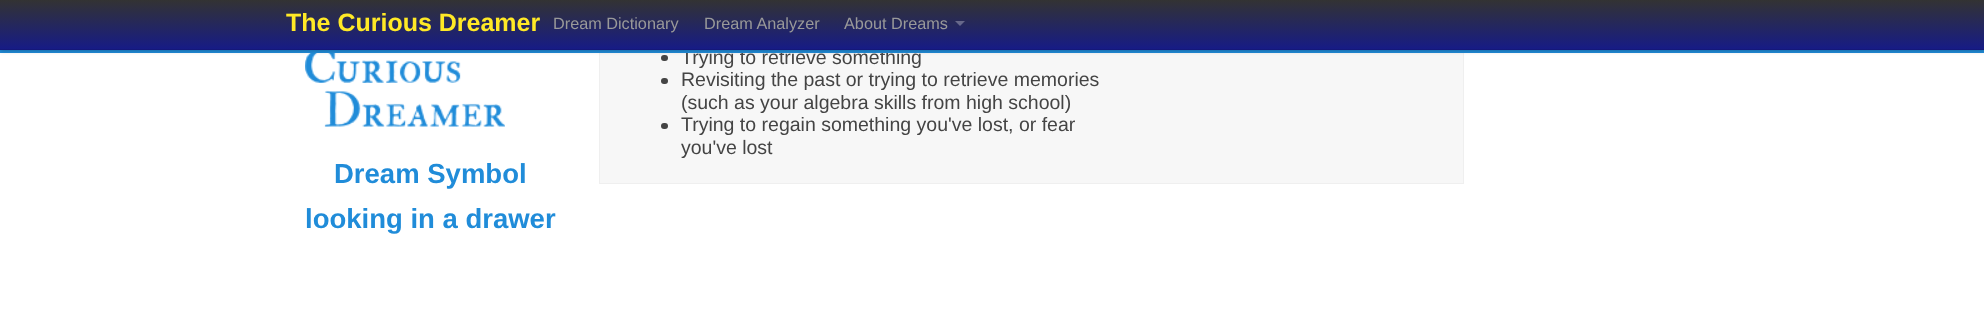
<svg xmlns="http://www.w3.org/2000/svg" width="1984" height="321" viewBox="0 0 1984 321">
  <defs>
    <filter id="blur1" x="-50%" y="-200%" width="200%" height="500%"><feGaussianBlur stdDeviation="2"/></filter>
    <linearGradient id="g1" gradientUnits="userSpaceOnUse" x1="993" y1="0" x2="993" y2="50"><stop offset="0" stop-color="#333333"/><stop offset="1" stop-color="#161b87"/></linearGradient>
  </defs>
  <rect width="100%" height="100%" fill="#ffffff"/>
  <rect x="600" y="53" width="863" height="130" fill="#f7f7f7"/>
  <rect x="599.5" y="-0.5" width="864" height="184" fill="none" stroke="#efefef"/>
  <text x="681" y="64" font-family="Liberation Sans" font-size="19.5" fill="#444444">Trying to retrieve something</text>
  <rect x="0" y="50" width="1984" height="3" fill="#208cd9"/>
  <rect x="661" y="55" width="7" height="6" rx="3" fill="#444444"/>
  <image x="305" y="53" width="200" height="74" href="img1.png"/>
  <rect x="0" y="1" width="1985" height="50" fill="#000000" fill-opacity="0.25" filter="url(#blur1)"/>
  <rect x="0" y="0" width="1984" height="49" fill="url(#g1)"/>
  <rect x="0" y="49" width="1984" height="1" fill="#141879"/>
  <text x="286" y="31" font-family="Liberation Sans" font-size="25" font-weight="bold" fill="#ffe926">The Curious Dreamer</text>
  <text x="553" y="29" font-family="Liberation Sans" font-size="16.25" fill="#999999">Dream Dictionary</text>
  <text x="704" y="29" font-family="Liberation Sans" font-size="16.25" fill="#999999">Dream Analyzer</text>
  <text x="844" y="29" font-family="Liberation Sans" font-size="16.25" fill="#999999">About Dreams</text>
  <path d="M955 21H965L960 26Z" fill="#ffffff" fill-opacity="0.3"/>
  <rect x="661" y="78" width="7" height="6" rx="3" fill="#444444"/>
  <text x="681" y="86" font-family="Liberation Sans" font-size="19.5" fill="#444444">Revisiting the past or trying to retrieve memories</text>
  <text x="681" y="109" font-family="Liberation Sans" font-size="19.5" fill="#444444">(such as your algebra skills from high school)</text>
  <rect x="661" y="123" width="7" height="6" rx="3" fill="#444444"/>
  <text x="681" y="131" font-family="Liberation Sans" font-size="19.5" fill="#444444">Trying to regain something you've lost, or fear</text>
  <text x="681" y="154" font-family="Liberation Sans" font-size="19.5" fill="#444444">you've lost</text>
  <text x="334" y="183" font-family="Liberation Sans" font-size="27.5" font-weight="bold" fill="#208cd9">Dream Symbol</text>
  <text x="305" y="228" font-family="Liberation Sans" font-size="27.5" font-weight="bold" fill="#208cd9">looking in a drawer</text>
</svg>
